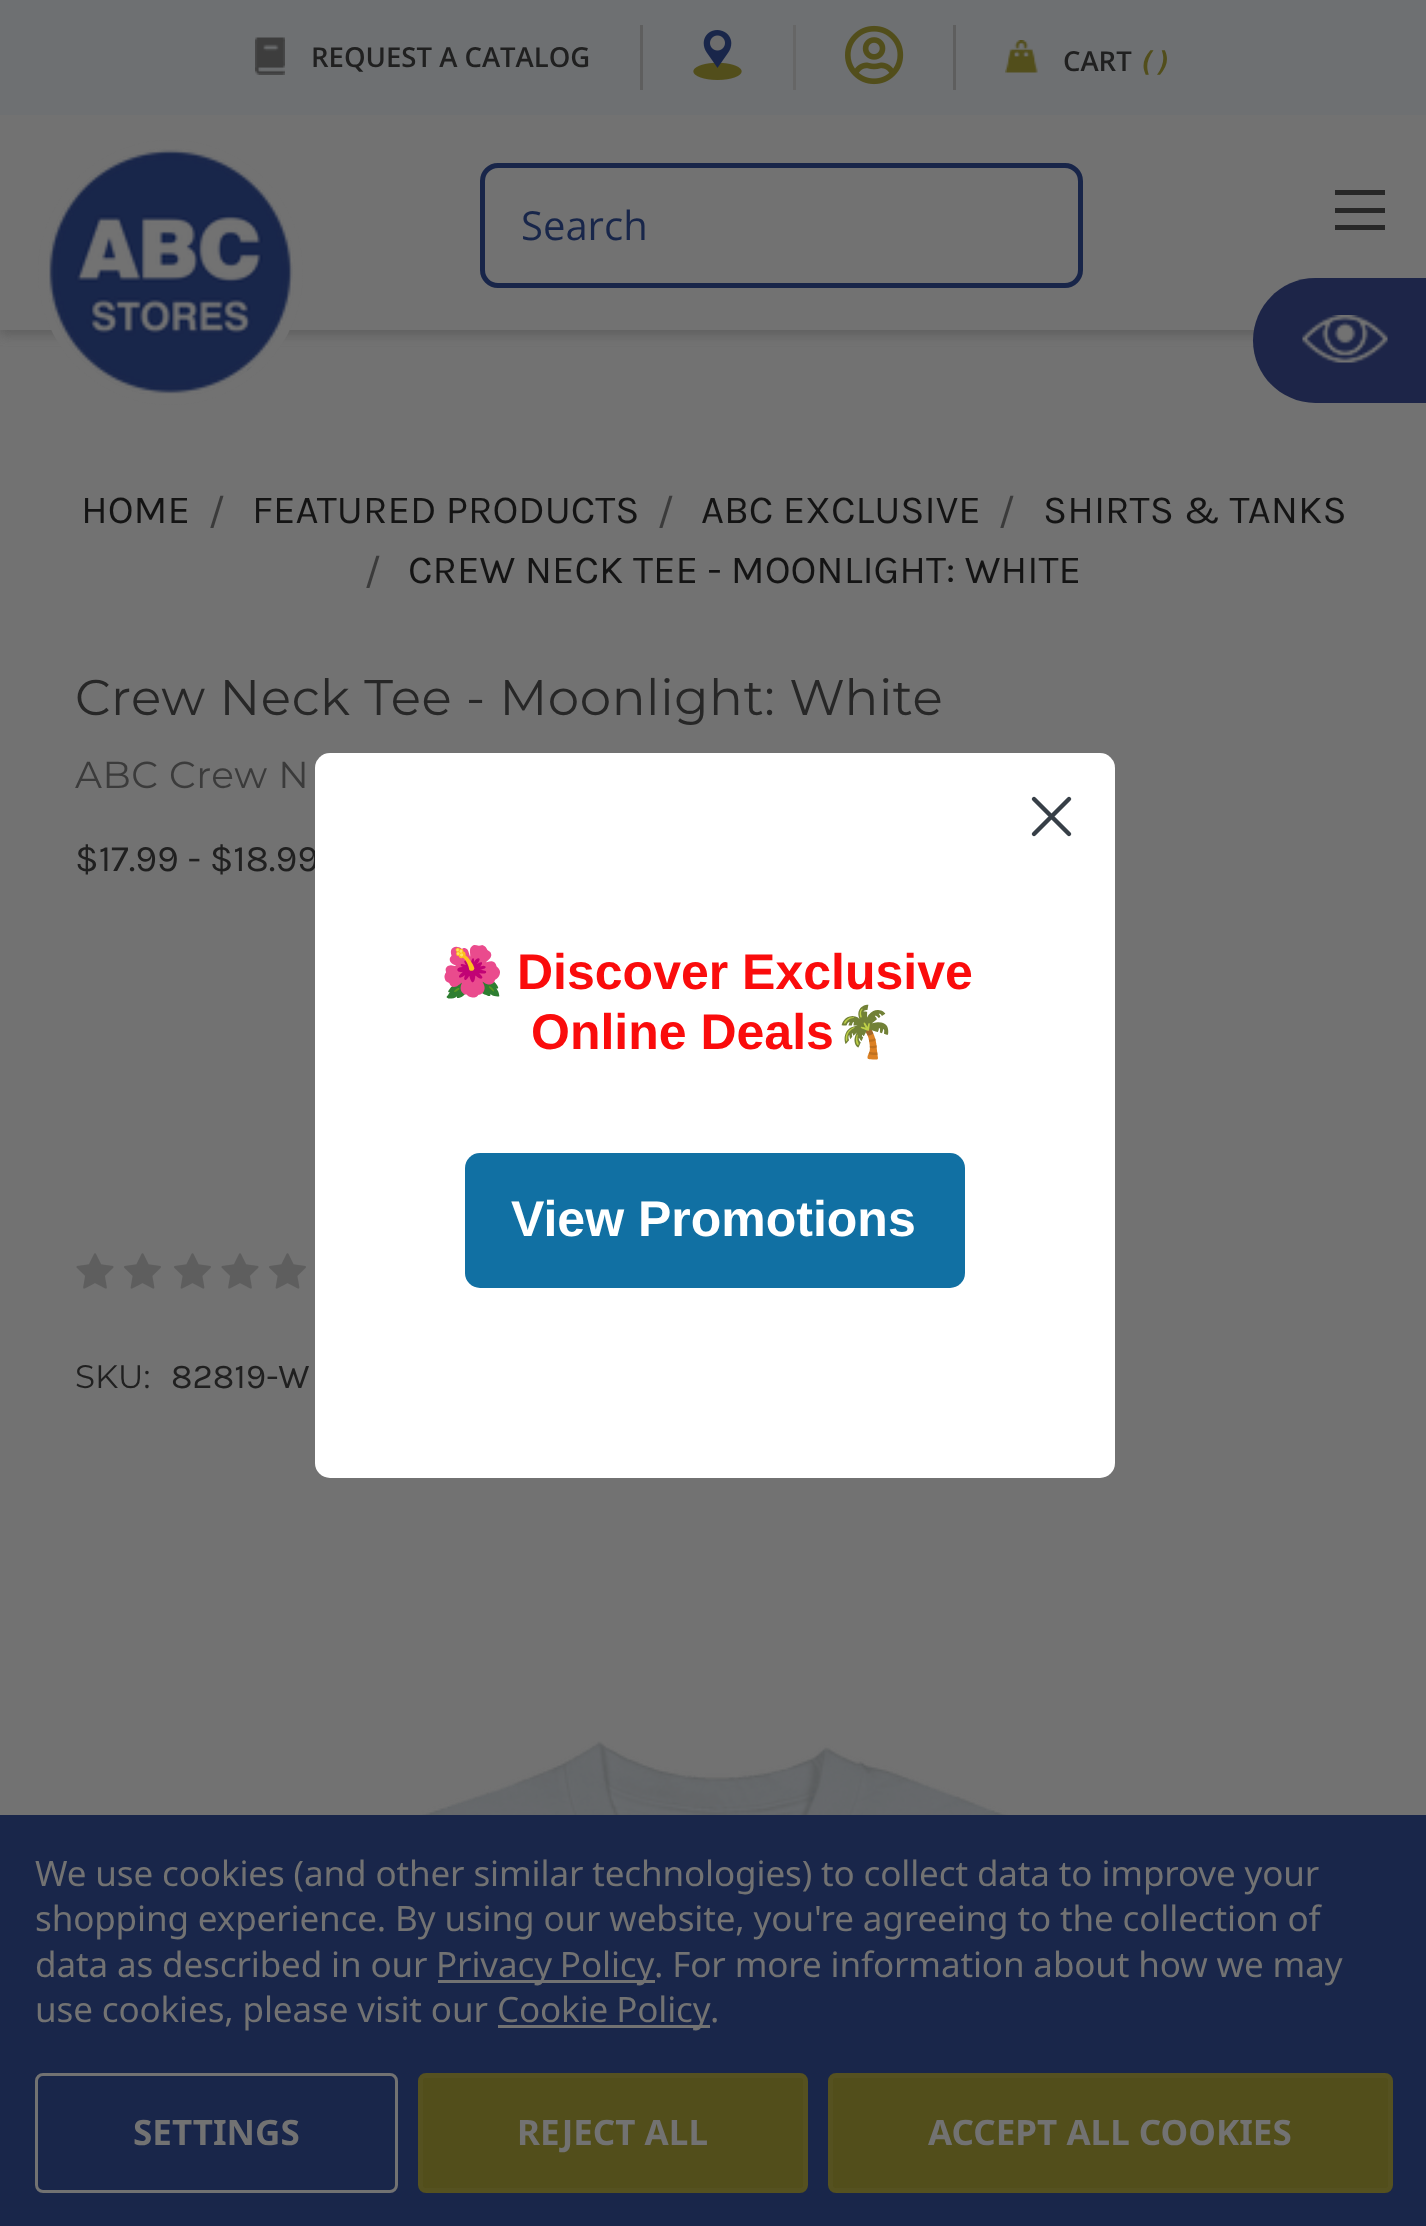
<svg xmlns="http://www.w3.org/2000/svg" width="1426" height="2226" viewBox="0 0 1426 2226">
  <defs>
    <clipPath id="clip1"><rect x="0" y="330" width="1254" height="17"/></clipPath>
    <filter id="blur1" x="-50%" y="-200%" width="200%" height="500%"><feGaussianBlur stdDeviation="6"/></filter>
  </defs>
  <rect width="100%" height="100%" fill="#727272"/>
  <g clip-path="url(#clip1)">
    <rect x="0" y="5" width="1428" height="330" fill="#5e5e5e" filter="url(#blur1)"/>
  </g>
  <rect x="0" y="0" width="1426" height="115" fill="#6e7072"/>
  <rect x="640" y="25" width="3" height="65" fill="#5e5e5e"/>
  <image x="255" y="37" width="30" height="38" href="img1.png"/>
  <text x="311" y="67" font-family="Open Sans" font-size="27.5" font-weight="600" fill="#202020">REQUEST A CATALOG</text>
  <rect x="793" y="25" width="3" height="65" fill="#666666"/>
  <image x="693" y="30" width="49" height="50" href="img2.png"/>
  <image x="845" y="25" width="59" height="60" href="img3.png"/>
  <rect x="953" y="25" width="3" height="65" fill="#5e5e5e"/>
  <image x="1005" y="40" width="33" height="33" href="img4.png"/>
  <text x="1063" y="71" font-family="Open Sans" font-size="27.5" font-weight="600" fill="#202020">CART</text>
  <text x="1139" y="71" font-family="DejaVu Sans Mono" font-size="27.5" font-weight="bold" font-style="italic" fill="#524e1b">()</text>
  <circle cx="170.5" cy="272.5" r="128.5" fill="#727272" stroke="#727272" stroke-width="8"/>
  <image x="49" y="149" width="244" height="245" href="img5.png"/>
  <rect x="482.5" y="165.5" width="598" height="120" rx="15.5" fill="none" stroke="#182549" stroke-width="5"/>
  <text x="521" y="240" font-family="Open Sans" font-size="40" fill="#18264a">Search</text>
  <rect x="1335" y="208" width="50" height="5" fill="#272727"/>
  <rect x="1335" y="190" width="50" height="5" fill="#272727"/>
  <rect x="1335" y="225" width="50" height="5" fill="#272727"/>
  <path d="M1315.5 278H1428V403H1315.5C1281 403 1253 375 1253 340.5C1253 306 1281 278 1315.5 278Z" fill="#1d2548"/>
  <image x="1302" y="315" width="86" height="48" href="img6.png"/>
  <text x="81" y="523" font-family="Karla" font-size="40" fill="#141414">HOME</text>
  <text x="208" y="525" font-family="Karla" font-size="40" fill="#3b3b3b">/</text>
  <text x="252" y="523" font-family="Karla" font-size="40" fill="#141414">FEATURED PRODUCTS</text>
  <text x="657" y="525" font-family="Karla" font-size="40" fill="#3b3b3b">/</text>
  <text x="701" y="523" font-family="Karla" font-size="40" fill="#141414">ABC EXCLUSIVE</text>
  <text x="998" y="525" font-family="Karla" font-size="40" fill="#3b3b3b">/</text>
  <text x="1043" y="523" font-family="Karla" font-size="40" fill="#141414">SHIRTS &amp; TANKS</text>
  <text x="364" y="585" font-family="Karla" font-size="40" fill="#3b3b3b">/</text>
  <text x="408" y="583" font-family="Karla" font-size="40" fill="#141414">CREW NECK TEE - MOONLIGHT: WHITE</text>
  <text x="75" y="715" font-family="Montserrat" font-size="50" letter-spacing="0.6" fill="#272727">Crew Neck Tee - Moonlight: White</text>
  <text x="75" y="788" font-family="Montserrat" font-size="37.5" letter-spacing="0.6" fill="#3b3b3b">ABC Crew N</text>
  <text x="75" y="871" font-family="Karla" font-size="37.5" fill="#202020">$17.99 - $18.99</text>
  <image x="76" y="1253" width="38" height="36" href="img7.png"/>
  <image x="124" y="1253" width="37" height="36" href="img8.png"/>
  <image x="174" y="1253" width="37" height="36" href="img8.png"/>
  <image x="221" y="1253" width="38" height="36" href="img7.png"/>
  <image x="269" y="1253" width="37" height="36" href="img8.png"/>
  <text x="75" y="1388" font-family="Montserrat" font-size="32.5" fill="#202020">SKU:</text>
  <text x="171" y="1388" font-family="Karla" font-size="35" fill="#202020">82819-W</text>
  <image x="420" y="1741" width="588" height="74" href="img9.png"/>
  <rect x="315" y="753" width="800" height="725" rx="15" fill="#ffffff"/>
  <path d="M1034 799L1069 834M1034 834L1069 799Z" fill="none" stroke="#373f47" stroke-width="4.4" stroke-linecap="round" stroke-linejoin="round"/>
  <text x="441" y="989" font-family="Noto Color Emoji" font-size="50" font-weight="bold" fill="#fa0c0c">🌺</text>
  <text x="517" y="989" font-family="Liberation Sans" font-size="50" font-weight="bold" fill="#fa0c0c">Discover Exclusive</text>
  <text x="531" y="1049" font-family="Liberation Sans" font-size="50" font-weight="bold" fill="#fa0c0c">Online Deals</text>
  <text x="834" y="1049" font-family="Noto Color Emoji" font-size="50" font-weight="bold" fill="#fa0c0c">🌴</text>
  <rect x="465" y="1153" width="500" height="135" rx="15" fill="#1170a3"/>
  <text x="511" y="1236" font-family="Liberation Sans" font-size="50" font-weight="bold" fill="#ffffff">View Promotions</text>
  <rect x="0" y="1815" width="1426" height="411" fill="#19264a"/>
  <text x="35" y="1886" font-family="Noto Sans" font-size="35" letter-spacing="-0.12" fill="#727272">We use cookies (and other similar technologies) to collect data to improve your</text>
  <text x="35" y="1931" font-family="Noto Sans" font-size="35" letter-spacing="-0.12" fill="#727272">shopping experience. By using our website, you're agreeing to the collection of</text>
  <text x="35" y="1977" font-family="Noto Sans" font-size="35" letter-spacing="-0.12" fill="#727272">data as described in our</text>
  <rect x="438" y="1980" width="217" height="3" fill="#727272"/>
  <text x="436" y="1977" word-spacing="-1" font-family="Noto Sans" font-size="35" letter-spacing="-0.12" fill="#727272">Privacy Policy</text>
  <text x="654" y="1977" font-family="Noto Sans" font-size="35" letter-spacing="-0.12" fill="#727272">. For more information about how we may</text>
  <text x="35" y="2022" font-family="Noto Sans" font-size="35" letter-spacing="-0.12" fill="#727272">use cookies, please visit our</text>
  <rect x="498" y="2025" width="212" height="3" fill="#727272"/>
  <text x="497" y="2022" word-spacing="-1" font-family="Noto Sans" font-size="35" letter-spacing="-0.12" fill="#727272">Cookie Policy</text>
  <text x="710" y="2022" font-family="Noto Sans" font-size="35" letter-spacing="-0.12" fill="#727272">.</text>
  <rect x="36.5" y="2074.5" width="360" height="117" rx="6.5" fill="none" stroke="#727272" stroke-width="3"/>
  <text x="133" y="2145" font-family="Noto Sans" font-size="35" font-weight="bold" fill="#727272">SETTINGS</text>
  <rect x="420.5" y="2075.5" width="385" height="115" rx="5.5" fill="#524e1b" stroke="#555120" stroke-width="5"/>
  <text x="517" y="2145" font-family="Noto Sans" font-size="35" font-weight="bold" fill="#727272">REJECT ALL</text>
  <rect x="830.5" y="2075.5" width="560" height="115" rx="5.5" fill="#524e1b" stroke="#555120" stroke-width="5"/>
  <text x="928" y="2145" font-family="Noto Sans" font-size="35" font-weight="bold" fill="#727272">ACCEPT ALL COOKIES</text>
</svg>
